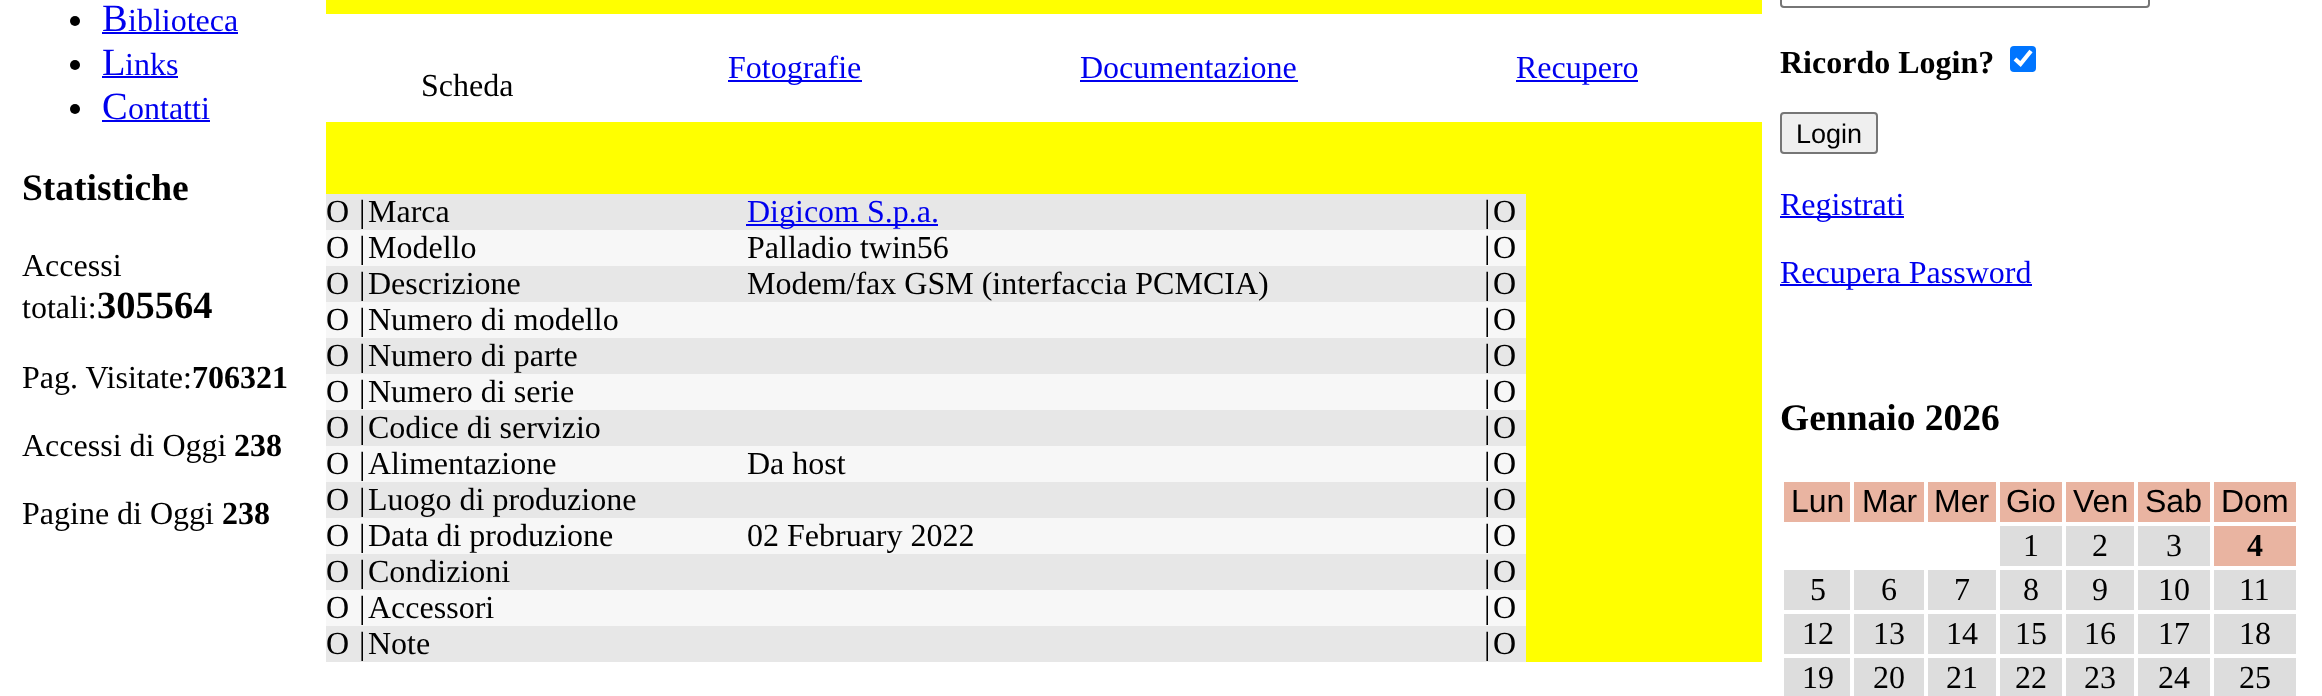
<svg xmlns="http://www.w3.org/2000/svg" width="2322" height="696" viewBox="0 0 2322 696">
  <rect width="100%" height="100%" fill="#ffffff"/>
  <circle cx="75" cy="21" r="5" fill="#000000"/>
  <text x="102" y="31" font-family="Liberation Serif" font-size="38.5" fill="#0000ee">B</text>
  <text x="128" y="31" font-family="Liberation Serif" font-size="32" fill="#0000ee">iblioteca</text>
  <rect x="102" y="32" width="136" height="2" fill="#0000ee"/>
  <circle cx="75" cy="65" r="5" fill="#000000"/>
  <text x="102" y="75" font-family="Liberation Serif" font-size="38.5" fill="#0000ee">L</text>
  <text x="125" y="75" font-family="Liberation Serif" font-size="32" fill="#0000ee">inks</text>
  <rect x="102" y="76" width="76" height="2" fill="#0000ee"/>
  <circle cx="75" cy="109" r="5" fill="#000000"/>
  <text x="102" y="119" font-family="Liberation Serif" font-size="38.5" fill="#0000ee">C</text>
  <text x="128" y="119" font-family="Liberation Serif" font-size="32" fill="#0000ee">ontatti</text>
  <rect x="102" y="120" width="108" height="2" fill="#0000ee"/>
  <text x="22" y="200" font-family="Liberation Serif" font-size="37.5" font-weight="bold" fill="#000000">Statistiche</text>
  <text x="22" y="276" font-family="Liberation Serif" font-size="32" fill="#000000">Accessi</text>
  <text x="22" y="318" font-family="Liberation Serif" font-size="32" fill="#000000">totali:</text>
  <text x="97" y="318" font-family="Liberation Serif" font-size="38.5" font-weight="bold" fill="#000000">305564</text>
  <text x="22" y="388" font-family="Liberation Serif" font-size="32" fill="#000000">Pag. Visitate:</text>
  <text x="192" y="388" font-family="Liberation Serif" font-size="32" font-weight="bold" fill="#000000">706321</text>
  <text x="22" y="456" font-family="Liberation Serif" font-size="32" fill="#000000">Accessi di Oggi</text>
  <text x="234" y="456" font-family="Liberation Serif" font-size="32" font-weight="bold" fill="#000000">238</text>
  <text x="22" y="524" font-family="Liberation Serif" font-size="32" fill="#000000">Pagine di Oggi</text>
  <text x="222" y="524" font-family="Liberation Serif" font-size="32" font-weight="bold" fill="#000000">238</text>
  <rect x="326" y="0" width="1436" height="14" fill="#ffff00"/>
  <text x="421" y="96" font-family="Liberation Serif" font-size="32" fill="#000000">Scheda</text>
  <rect x="728" y="80" width="134" height="2" fill="#0000ee"/>
  <text x="728" y="78" font-family="Liberation Serif" font-size="32" fill="#0000ee">Fotografie</text>
  <text x="1080" y="78" font-family="Liberation Serif" font-size="32" fill="#0000ee">Documentazione</text>
  <rect x="1080" y="80" width="218" height="2" fill="#0000ee"/>
  <rect x="1516" y="80" width="122" height="2" fill="#0000ee"/>
  <text x="1516" y="78" font-family="Liberation Serif" font-size="32" fill="#0000ee">Recupero</text>
  <rect x="326" y="122" width="1436" height="540" fill="#ffff00"/>
  <rect x="326" y="194" width="1200" height="36" fill="#e7e7e7"/>
  <text x="326" y="222" font-family="Liberation Serif" font-size="32" fill="#000000">O</text>
  <text x="359" y="222" font-family="Liberation Serif" font-size="32" fill="#000000">|</text>
  <text x="368" y="222" font-family="Liberation Serif" font-size="32" fill="#000000">Marca</text>
  <rect x="746" y="224" width="192" height="2" fill="#0000ee"/>
  <text x="747" y="222" font-family="Liberation Serif" font-size="32" fill="#0000ee">Digicom S.p.a.</text>
  <text x="1484" y="222" font-family="Liberation Serif" font-size="32" fill="#000000">|</text>
  <text x="1493" y="222" font-family="Liberation Serif" font-size="32" fill="#000000">O</text>
  <rect x="326" y="230" width="1200" height="36" fill="#f7f7f7"/>
  <text x="326" y="258" font-family="Liberation Serif" font-size="32" fill="#000000">O</text>
  <text x="359" y="258" font-family="Liberation Serif" font-size="32" fill="#000000">|</text>
  <text x="368" y="258" font-family="Liberation Serif" font-size="32" fill="#000000">Modello</text>
  <text x="747" y="258" font-family="Liberation Serif" font-size="32" fill="#000000">Palladio twin56</text>
  <text x="1484" y="258" font-family="Liberation Serif" font-size="32" fill="#000000">|</text>
  <text x="1493" y="258" font-family="Liberation Serif" font-size="32" fill="#000000">O</text>
  <rect x="326" y="266" width="1200" height="36" fill="#e7e7e7"/>
  <text x="326" y="294" font-family="Liberation Serif" font-size="32" fill="#000000">O</text>
  <text x="359" y="294" font-family="Liberation Serif" font-size="32" fill="#000000">|</text>
  <text x="368" y="294" font-family="Liberation Serif" font-size="32" fill="#000000">Descrizione</text>
  <text x="747" y="294" font-family="Liberation Serif" font-size="32" fill="#000000">Modem/fax GSM (interfaccia PCMCIA)</text>
  <text x="1484" y="294" font-family="Liberation Serif" font-size="32" fill="#000000">|</text>
  <text x="1493" y="294" font-family="Liberation Serif" font-size="32" fill="#000000">O</text>
  <rect x="326" y="302" width="1200" height="36" fill="#f7f7f7"/>
  <text x="326" y="330" font-family="Liberation Serif" font-size="32" fill="#000000">O</text>
  <text x="359" y="330" font-family="Liberation Serif" font-size="32" fill="#000000">|</text>
  <text x="368" y="330" font-family="Liberation Serif" font-size="32" fill="#000000">Numero di modello</text>
  <text x="1484" y="330" font-family="Liberation Serif" font-size="32" fill="#000000">|</text>
  <text x="1493" y="330" font-family="Liberation Serif" font-size="32" fill="#000000">O</text>
  <rect x="326" y="338" width="1200" height="36" fill="#e7e7e7"/>
  <text x="326" y="366" font-family="Liberation Serif" font-size="32" fill="#000000">O</text>
  <text x="359" y="366" font-family="Liberation Serif" font-size="32" fill="#000000">|</text>
  <text x="368" y="366" font-family="Liberation Serif" font-size="32" fill="#000000">Numero di parte</text>
  <text x="1484" y="366" font-family="Liberation Serif" font-size="32" fill="#000000">|</text>
  <text x="1493" y="366" font-family="Liberation Serif" font-size="32" fill="#000000">O</text>
  <rect x="326" y="374" width="1200" height="36" fill="#f7f7f7"/>
  <text x="326" y="402" font-family="Liberation Serif" font-size="32" fill="#000000">O</text>
  <text x="359" y="402" font-family="Liberation Serif" font-size="32" fill="#000000">|</text>
  <text x="368" y="402" font-family="Liberation Serif" font-size="32" fill="#000000">Numero di serie</text>
  <text x="1484" y="402" font-family="Liberation Serif" font-size="32" fill="#000000">|</text>
  <text x="1493" y="402" font-family="Liberation Serif" font-size="32" fill="#000000">O</text>
  <rect x="326" y="410" width="1200" height="36" fill="#e7e7e7"/>
  <text x="326" y="438" font-family="Liberation Serif" font-size="32" fill="#000000">O</text>
  <text x="359" y="438" font-family="Liberation Serif" font-size="32" fill="#000000">|</text>
  <text x="368" y="438" font-family="Liberation Serif" font-size="32" fill="#000000">Codice di servizio</text>
  <text x="1484" y="438" font-family="Liberation Serif" font-size="32" fill="#000000">|</text>
  <text x="1493" y="438" font-family="Liberation Serif" font-size="32" fill="#000000">O</text>
  <rect x="326" y="446" width="1200" height="36" fill="#f7f7f7"/>
  <text x="326" y="474" font-family="Liberation Serif" font-size="32" fill="#000000">O</text>
  <text x="359" y="474" font-family="Liberation Serif" font-size="32" fill="#000000">|</text>
  <text x="368" y="474" font-family="Liberation Serif" font-size="32" fill="#000000">Alimentazione</text>
  <text x="747" y="474" font-family="Liberation Serif" font-size="32" fill="#000000">Da host</text>
  <text x="1484" y="474" font-family="Liberation Serif" font-size="32" fill="#000000">|</text>
  <text x="1493" y="474" font-family="Liberation Serif" font-size="32" fill="#000000">O</text>
  <rect x="326" y="482" width="1200" height="36" fill="#e7e7e7"/>
  <text x="326" y="510" font-family="Liberation Serif" font-size="32" fill="#000000">O</text>
  <text x="359" y="510" font-family="Liberation Serif" font-size="32" fill="#000000">|</text>
  <text x="368" y="510" font-family="Liberation Serif" font-size="32" fill="#000000">Luogo di produzione</text>
  <text x="1484" y="510" font-family="Liberation Serif" font-size="32" fill="#000000">|</text>
  <text x="1493" y="510" font-family="Liberation Serif" font-size="32" fill="#000000">O</text>
  <rect x="326" y="518" width="1200" height="36" fill="#f7f7f7"/>
  <text x="326" y="546" font-family="Liberation Serif" font-size="32" fill="#000000">O</text>
  <text x="359" y="546" font-family="Liberation Serif" font-size="32" fill="#000000">|</text>
  <text x="368" y="546" font-family="Liberation Serif" font-size="32" fill="#000000">Data di produzione</text>
  <text x="747" y="546" font-family="Liberation Serif" font-size="32" fill="#000000">02 February 2022</text>
  <text x="1484" y="546" font-family="Liberation Serif" font-size="32" fill="#000000">|</text>
  <text x="1493" y="546" font-family="Liberation Serif" font-size="32" fill="#000000">O</text>
  <rect x="326" y="554" width="1200" height="36" fill="#e7e7e7"/>
  <text x="326" y="582" font-family="Liberation Serif" font-size="32" fill="#000000">O</text>
  <text x="359" y="582" font-family="Liberation Serif" font-size="32" fill="#000000">|</text>
  <text x="368" y="582" font-family="Liberation Serif" font-size="32" fill="#000000">Condizioni</text>
  <text x="1484" y="582" font-family="Liberation Serif" font-size="32" fill="#000000">|</text>
  <text x="1493" y="582" font-family="Liberation Serif" font-size="32" fill="#000000">O</text>
  <rect x="326" y="590" width="1200" height="36" fill="#f7f7f7"/>
  <text x="326" y="618" font-family="Liberation Serif" font-size="32" fill="#000000">O</text>
  <text x="359" y="618" font-family="Liberation Serif" font-size="32" fill="#000000">|</text>
  <text x="368" y="618" font-family="Liberation Serif" font-size="32" fill="#000000">Accessori</text>
  <text x="1484" y="618" font-family="Liberation Serif" font-size="32" fill="#000000">|</text>
  <text x="1493" y="618" font-family="Liberation Serif" font-size="32" fill="#000000">O</text>
  <rect x="326" y="626" width="1200" height="36" fill="#e7e7e7"/>
  <text x="326" y="654" font-family="Liberation Serif" font-size="32" fill="#000000">O</text>
  <text x="359" y="654" font-family="Liberation Serif" font-size="32" fill="#000000">|</text>
  <text x="368" y="654" font-family="Liberation Serif" font-size="32" fill="#000000">Note</text>
  <text x="1484" y="654" font-family="Liberation Serif" font-size="32" fill="#000000">|</text>
  <text x="1493" y="654" font-family="Liberation Serif" font-size="32" fill="#000000">O</text>
  <rect x="1781" y="-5" width="368" height="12" rx="3" fill="none" stroke="#767676" stroke-width="2"/>
  <text x="1780" y="73" font-family="Liberation Serif" font-size="32" font-weight="bold" fill="#000000">Ricordo Login?</text>
  <rect x="2010" y="46" width="26" height="26" rx="4" fill="#0075ff"/>
  <path d="M2015 59L2020.5 64L2031 51" fill="none" stroke="#ffffff" stroke-width="4.2"/>
  <rect x="1781" y="113" width="96" height="40" rx="3" fill="#efefef" stroke="#767676" stroke-width="2"/>
  <text x="1796" y="143" font-family="Liberation Sans" font-size="27" fill="#000000">Login</text>
  <rect x="1780" y="216" width="124" height="2" fill="#0000ee"/>
  <text x="1780" y="215" font-family="Liberation Serif" font-size="32" fill="#0000ee">Registrati</text>
  <rect x="1780" y="284" width="252" height="2" fill="#0000ee"/>
  <text x="1780" y="283" font-family="Liberation Serif" font-size="32" fill="#0000ee">Recupera Password</text>
  <text x="1780" y="430" font-family="Liberation Serif" font-size="37.5" font-weight="bold" fill="#000000">Gennaio 2026</text>
  <rect x="1784" y="482" width="66" height="40" fill="#e9b4a1"/>
  <text x="1791" y="512" font-family="Liberation Sans" font-size="32" fill="#000000">Lun</text>
  <rect x="1854" y="482" width="70" height="40" fill="#e9b4a1"/>
  <text x="1862" y="512" font-family="Liberation Sans" font-size="32" fill="#000000">Mar</text>
  <rect x="1928" y="482" width="68" height="40" fill="#e9b4a1"/>
  <text x="1934" y="512" font-family="Liberation Sans" font-size="32" fill="#000000">Mer</text>
  <rect x="2000" y="482" width="62" height="40" fill="#e9b4a1"/>
  <text x="2006" y="512" font-family="Liberation Sans" font-size="32" fill="#000000">Gio</text>
  <rect x="2066" y="482" width="68" height="40" fill="#e9b4a1"/>
  <text x="2073" y="512" font-family="Liberation Sans" font-size="32" fill="#000000">Ven</text>
  <rect x="2138" y="482" width="72" height="40" fill="#e9b4a1"/>
  <text x="2145" y="512" font-family="Liberation Sans" font-size="32" fill="#000000">Sab</text>
  <rect x="2214" y="482" width="82" height="40" fill="#e9b4a1"/>
  <text x="2221" y="512" font-family="Liberation Sans" font-size="32" fill="#000000">Dom</text>
  <rect x="2000" y="526" width="62" height="40" fill="#dddddd"/>
  <text x="2023" y="556" font-family="Liberation Serif" font-size="32" fill="#000000">1</text>
  <rect x="2066" y="526" width="68" height="40" fill="#dddddd"/>
  <text x="2092" y="556" font-family="Liberation Serif" font-size="32" fill="#000000">2</text>
  <rect x="2138" y="526" width="72" height="40" fill="#dddddd"/>
  <text x="2166" y="556" font-family="Liberation Serif" font-size="32" fill="#000000">3</text>
  <rect x="2214" y="526" width="82" height="40" fill="#e9b4a1"/>
  <text x="2247" y="556" font-family="Liberation Serif" font-size="32" font-weight="bold" fill="#000000">4</text>
  <rect x="1784" y="570" width="66" height="40" fill="#dddddd"/>
  <text x="1810" y="600" font-family="Liberation Serif" font-size="32" fill="#000000">5</text>
  <rect x="1854" y="570" width="70" height="40" fill="#dddddd"/>
  <text x="1881" y="600" font-family="Liberation Serif" font-size="32" fill="#000000">6</text>
  <rect x="1928" y="570" width="68" height="40" fill="#dddddd"/>
  <text x="1954" y="600" font-family="Liberation Serif" font-size="32" fill="#000000">7</text>
  <rect x="2000" y="570" width="62" height="40" fill="#dddddd"/>
  <text x="2023" y="600" font-family="Liberation Serif" font-size="32" fill="#000000">8</text>
  <rect x="2066" y="570" width="68" height="40" fill="#dddddd"/>
  <text x="2092" y="600" font-family="Liberation Serif" font-size="32" fill="#000000">9</text>
  <rect x="2138" y="570" width="72" height="40" fill="#dddddd"/>
  <text x="2158" y="600" font-family="Liberation Serif" font-size="32" fill="#000000">10</text>
  <rect x="2214" y="570" width="82" height="40" fill="#dddddd"/>
  <text x="2239" y="600" font-family="Liberation Serif" font-size="32" fill="#000000">11</text>
  <rect x="1784" y="614" width="66" height="40" fill="#dddddd"/>
  <text x="1802" y="644" font-family="Liberation Serif" font-size="32" fill="#000000">12</text>
  <rect x="1854" y="614" width="70" height="40" fill="#dddddd"/>
  <text x="1873" y="644" font-family="Liberation Serif" font-size="32" fill="#000000">13</text>
  <rect x="1928" y="614" width="68" height="40" fill="#dddddd"/>
  <text x="1946" y="644" font-family="Liberation Serif" font-size="32" fill="#000000">14</text>
  <rect x="2000" y="614" width="62" height="40" fill="#dddddd"/>
  <text x="2015" y="644" font-family="Liberation Serif" font-size="32" fill="#000000">15</text>
  <rect x="2066" y="614" width="68" height="40" fill="#dddddd"/>
  <text x="2084" y="644" font-family="Liberation Serif" font-size="32" fill="#000000">16</text>
  <rect x="2138" y="614" width="72" height="40" fill="#dddddd"/>
  <text x="2158" y="644" font-family="Liberation Serif" font-size="32" fill="#000000">17</text>
  <rect x="2214" y="614" width="82" height="40" fill="#dddddd"/>
  <text x="2239" y="644" font-family="Liberation Serif" font-size="32" fill="#000000">18</text>
  <rect x="1784" y="658" width="66" height="38" fill="#dddddd"/>
  <text x="1802" y="688" font-family="Liberation Serif" font-size="32" fill="#000000">19</text>
  <rect x="1854" y="658" width="70" height="38" fill="#dddddd"/>
  <text x="1873" y="688" font-family="Liberation Serif" font-size="32" fill="#000000">20</text>
  <rect x="1928" y="658" width="68" height="38" fill="#dddddd"/>
  <text x="1946" y="688" font-family="Liberation Serif" font-size="32" fill="#000000">21</text>
  <rect x="2000" y="658" width="62" height="38" fill="#dddddd"/>
  <text x="2015" y="688" font-family="Liberation Serif" font-size="32" fill="#000000">22</text>
  <rect x="2066" y="658" width="68" height="38" fill="#dddddd"/>
  <text x="2084" y="688" font-family="Liberation Serif" font-size="32" fill="#000000">23</text>
  <rect x="2138" y="658" width="72" height="38" fill="#dddddd"/>
  <text x="2158" y="688" font-family="Liberation Serif" font-size="32" fill="#000000">24</text>
  <rect x="2214" y="658" width="82" height="38" fill="#dddddd"/>
  <text x="2239" y="688" font-family="Liberation Serif" font-size="32" fill="#000000">25</text>
</svg>
